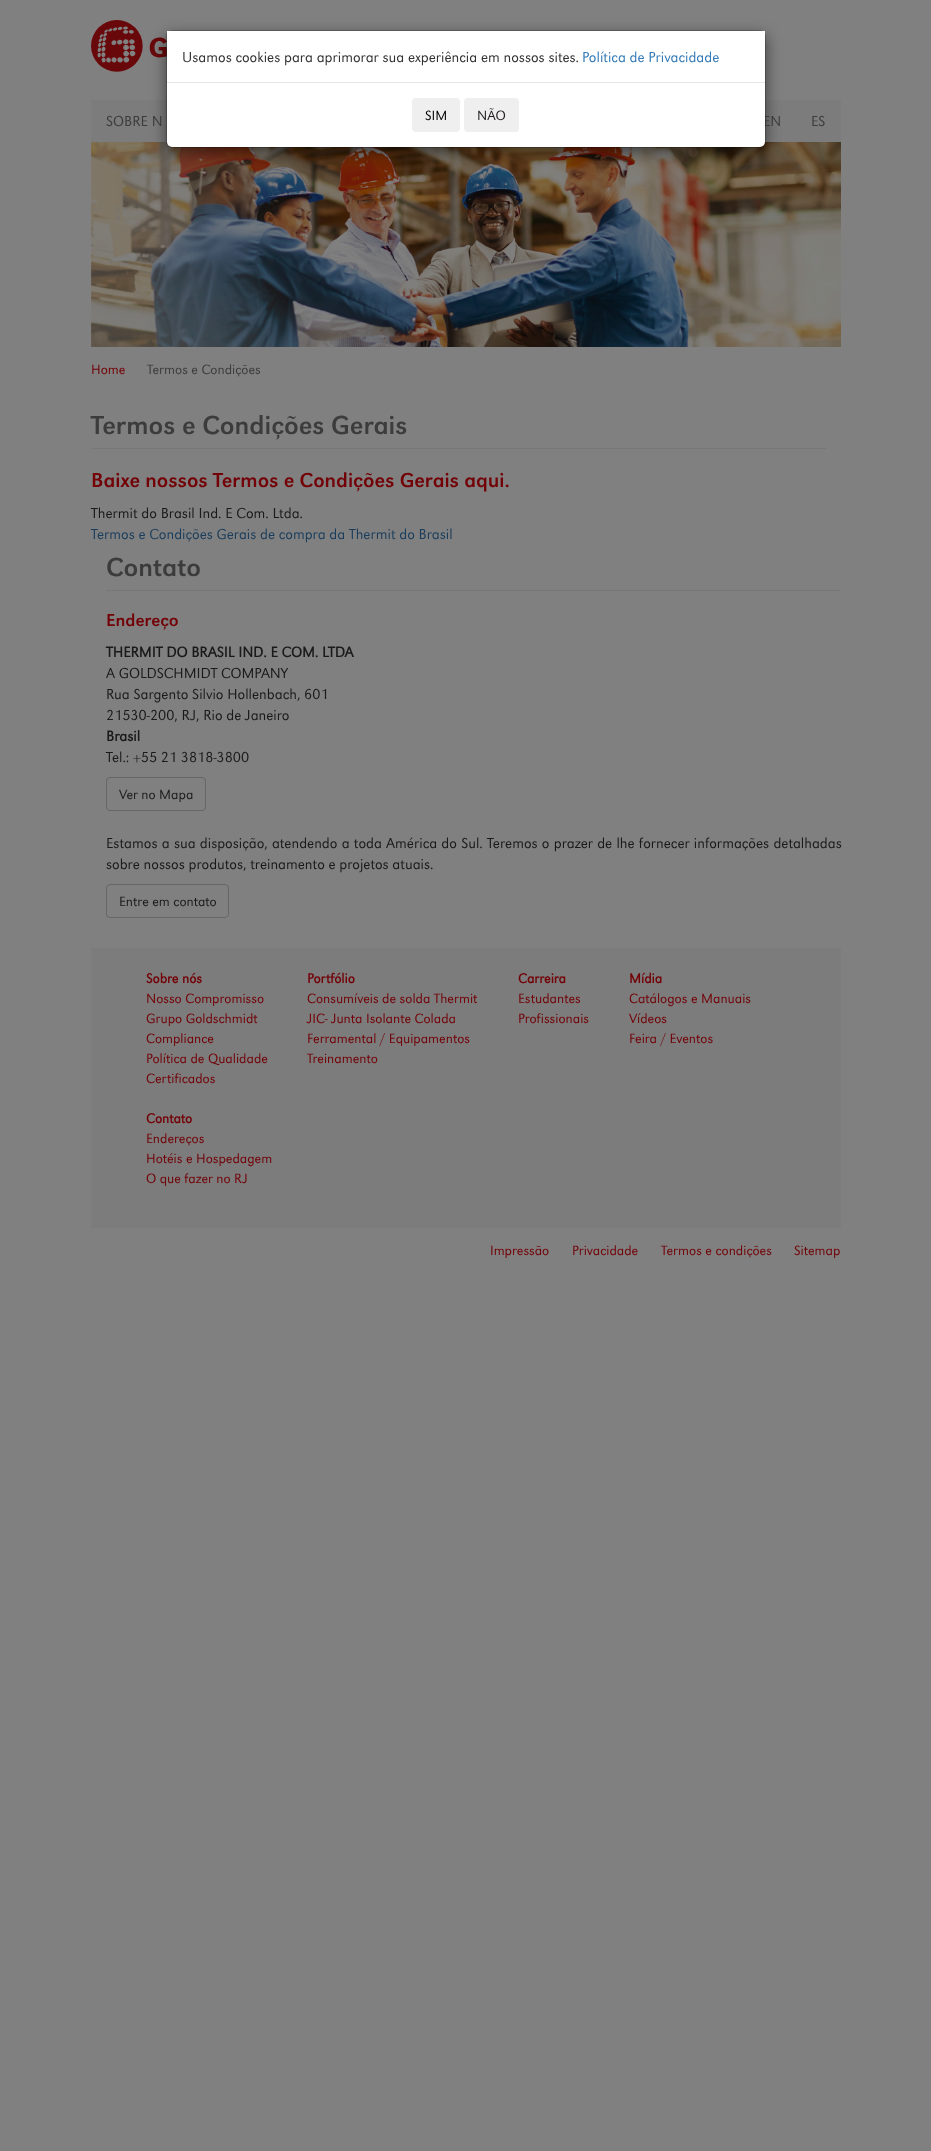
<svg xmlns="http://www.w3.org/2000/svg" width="931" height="2151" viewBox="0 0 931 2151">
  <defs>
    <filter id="blur1" x="-50%" y="-200%" width="200%" height="500%"><feGaussianBlur stdDeviation="7.5"/></filter>
  </defs>
  <rect width="100%" height="100%" fill="#808080"/>
  <image x="91" y="20" width="76" height="52" href="img1.png"/>
  <rect x="91" y="100" width="750" height="42" fill="#7c7c7c"/>
  <image x="91" y="142" width="750" height="205" href="img2.png"/>
  <rect x="166" y="35" width="600" height="118" rx="6" fill="#000000" fill-opacity="0.5" filter="url(#blur1)"/>
  <text x="763" y="126" font-family="'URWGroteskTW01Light'" font-size="15" font-weight="300" fill="#3c3c3c">EN</text>
  <rect x="167" y="31" width="598" height="116" rx="5" fill="#ffffff"/>
  <rect x="166.5" y="30.5" width="599" height="117" rx="5.5" fill="none" stroke="#000000" stroke-opacity="0.2"/>
  <rect x="167" y="31" width="598" height="5" fill="#ffffff"/>
  <rect x="167" y="82" width="598" height="1" fill="#e6e6e6"/>
  <text x="182" y="62" font-family="'URWGroteskTW01Light'" font-size="15" font-weight="300" fill="#333333">Usamos cookies para aprimorar sua experiência em nossos sites.</text>
  <text x="582" y="62" font-family="'URWGroteskTW01Light'" font-size="15" font-weight="300" fill="#337ab7">Política de Privacidade</text>
  <rect x="412" y="98" width="48" height="34" rx="4" fill="#efefef"/>
  <text x="425" y="120" font-family="'URWGroteskTW01Light'" font-size="14" font-weight="300" fill="#000000">SIM</text>
  <rect x="464" y="98" width="55" height="34" rx="4" fill="#efefef"/>
  <text x="477" y="120" font-family="'URWGroteskTW01Light'" font-size="14" font-weight="300" fill="#221e1e">NÃO</text>
  <text x="106" y="126" font-family="'URWGroteskTW01Light'" font-size="15" font-weight="300" fill="#3c3c3c">SOBRE N</text>
  <text x="811" y="126" font-family="'URWGroteskTW01Light'" font-size="15" font-weight="300" fill="#3c3c3c">ES</text>
  <text x="91" y="374" font-family="'URWGroteskTW01Light'" font-size="14" font-weight="300" fill="#720006">Home</text>
  <text x="147" y="374" font-family="'URWGroteskTW01Light'" font-size="14" font-weight="300" fill="#3c3c3c">Termos e Condições</text>
  <rect x="91" y="448" width="735" height="1" fill="#777777"/>
  <text x="91" y="434" font-family="'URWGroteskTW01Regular'" font-size="27" fill="#3c3c3c">Termos e Condições Gerais</text>
  <text x="91" y="487" font-family="'URWGroteskTW01Regular'" font-size="21" fill="#720006">Baixe nossos Termos e Condições Gerais aqui.</text>
  <text x="91" y="518" font-family="'URWGroteskTW01Light'" font-size="15" font-weight="300" fill="#1a1a1a">Thermit do Brasil Ind. E Com. Ltda.</text>
  <text x="91" y="539" font-family="'URWGroteskTW01Light'" font-size="15" font-weight="300" fill="#1a3d5c">Termos e Condições Gerais de compra da Thermit do Brasil</text>
  <rect x="106" y="590" width="735" height="1" fill="#777777"/>
  <text x="106" y="576" font-family="'URWGroteskTW01Regular'" font-size="27" fill="#3c3c3c">Contato</text>
  <text x="106" y="626" font-family="'URWGroteskTW01Regular'" font-size="18" fill="#720006">Endereço</text>
  <text x="106" y="657" font-family="'URWGroteskTW01Light'" font-size="15" font-weight="bold" fill="#1a1a1a">THERMIT DO BRASIL IND. E COM. LTDA</text>
  <text x="106" y="678" font-family="'URWGroteskTW01Light'" font-size="15" font-weight="300" fill="#1a1a1a">A GOLDSCHMIDT COMPANY</text>
  <text x="106" y="699" font-family="'URWGroteskTW01Light'" font-size="15" font-weight="300" fill="#1a1a1a">Rua Sargento Silvio Hollenbach, 601</text>
  <text x="106" y="720" font-family="'URWGroteskTW01Light'" font-size="15" font-weight="300" fill="#1a1a1a">21530-200, RJ, Rio de Janeiro</text>
  <text x="106" y="741" font-family="'URWGroteskTW01Light'" font-size="15" font-weight="bold" fill="#1a1a1a">Brasil</text>
  <text x="106" y="762" font-family="'URWGroteskTW01Light'" font-size="15" font-weight="300" fill="#1a1a1a">Tel.: +55 21 3818-3800</text>
  <rect x="106.5" y="777.5" width="99" height="33" rx="3.5" fill="none" stroke="#666666"/>
  <text x="119" y="799" font-family="'URWGroteskTW01Light'" font-size="14" font-weight="300" fill="#1a1a1a">Ver no Mapa</text>
  <text x="106" y="848" word-spacing="0.5" font-family="'URWGroteskTW01Light'" font-size="15" font-weight="300" fill="#1a1a1a">Estamos a sua disposição, atendendo a toda América do Sul. Teremos o prazer de lhe fornecer informações detalhadas</text>
  <text x="106" y="869" font-family="'URWGroteskTW01Light'" font-size="15" font-weight="300" fill="#1a1a1a">sobre nossos produtos, treinamento e projetos atuais.</text>
  <rect x="106.5" y="884.5" width="122" height="33" rx="3.5" fill="none" stroke="#666666"/>
  <text x="119" y="906" font-family="'URWGroteskTW01Light'" font-size="14" font-weight="300" fill="#1a1a1a">Entre em contato</text>
  <rect x="91" y="948" width="750" height="280" fill="#7c7c7c"/>
  <text x="146" y="983" font-family="'URWGroteskTW01Light'" font-size="14" font-weight="bold" fill="#720006">Sobre nós</text>
  <text x="146" y="1003" font-family="'URWGroteskTW01Light'" font-size="14" font-weight="300" fill="#720006">Nosso Compromisso</text>
  <text x="146" y="1023" font-family="'URWGroteskTW01Light'" font-size="14" font-weight="300" fill="#720006">Grupo Goldschmidt</text>
  <text x="146" y="1043" font-family="'URWGroteskTW01Light'" font-size="14" font-weight="300" fill="#720006">Compliance</text>
  <text x="146" y="1063" font-family="'URWGroteskTW01Light'" font-size="14" font-weight="300" fill="#720006">Política de Qualidade</text>
  <text x="146" y="1083" font-family="'URWGroteskTW01Light'" font-size="14" font-weight="300" fill="#720006">Certificados</text>
  <text x="307" y="983" font-family="'URWGroteskTW01Light'" font-size="14" font-weight="bold" fill="#720006">Portfólio</text>
  <text x="307" y="1003" font-family="'URWGroteskTW01Light'" font-size="14" font-weight="300" fill="#720006">Consumíveis de solda Thermit</text>
  <text x="307" y="1023" font-family="'URWGroteskTW01Light'" font-size="14" font-weight="300" fill="#720006">JIC- Junta Isolante Colada</text>
  <text x="307" y="1043" font-family="'URWGroteskTW01Light'" font-size="14" font-weight="300" fill="#720006">Ferramental / Equipamentos</text>
  <text x="307" y="1063" font-family="'URWGroteskTW01Light'" font-size="14" font-weight="300" fill="#720006">Treinamento</text>
  <text x="518" y="983" font-family="'URWGroteskTW01Light'" font-size="14" font-weight="bold" fill="#720006">Carreira</text>
  <text x="518" y="1003" font-family="'URWGroteskTW01Light'" font-size="14" font-weight="300" fill="#720006">Estudantes</text>
  <text x="518" y="1023" font-family="'URWGroteskTW01Light'" font-size="14" font-weight="300" fill="#720006">Profissionais</text>
  <text x="629" y="983" font-family="'URWGroteskTW01Light'" font-size="14" font-weight="bold" fill="#720006">Mídia</text>
  <text x="629" y="1003" font-family="'URWGroteskTW01Light'" font-size="14" font-weight="300" fill="#720006">Catálogos e Manuais</text>
  <text x="629" y="1023" font-family="'URWGroteskTW01Light'" font-size="14" font-weight="300" fill="#720006">Vídeos</text>
  <text x="629" y="1043" font-family="'URWGroteskTW01Light'" font-size="14" font-weight="300" fill="#720006">Feira / Eventos</text>
  <text x="146" y="1123" font-family="'URWGroteskTW01Light'" font-size="14" font-weight="bold" fill="#720006">Contato</text>
  <text x="146" y="1143" font-family="'URWGroteskTW01Light'" font-size="14" font-weight="300" fill="#720006">Endereços</text>
  <text x="146" y="1163" font-family="'URWGroteskTW01Light'" font-size="14" font-weight="300" fill="#720006">Hotéis e Hospedagem</text>
  <text x="146" y="1183" font-family="'URWGroteskTW01Light'" font-size="14" font-weight="300" fill="#720006">O que fazer no RJ</text>
  <text x="490" y="1255" font-family="'URWGroteskTW01Light'" font-size="14" font-weight="300" fill="#720006">Impressão</text>
  <text x="572" y="1255" font-family="'URWGroteskTW01Light'" font-size="14" font-weight="300" fill="#720006">Privacidade</text>
  <text x="661" y="1255" font-family="'URWGroteskTW01Light'" font-size="14" font-weight="300" fill="#720006">Termos e condições</text>
  <text x="794" y="1255" font-family="'URWGroteskTW01Light'" font-size="14" font-weight="300" fill="#720006">Sitemap</text>
</svg>
